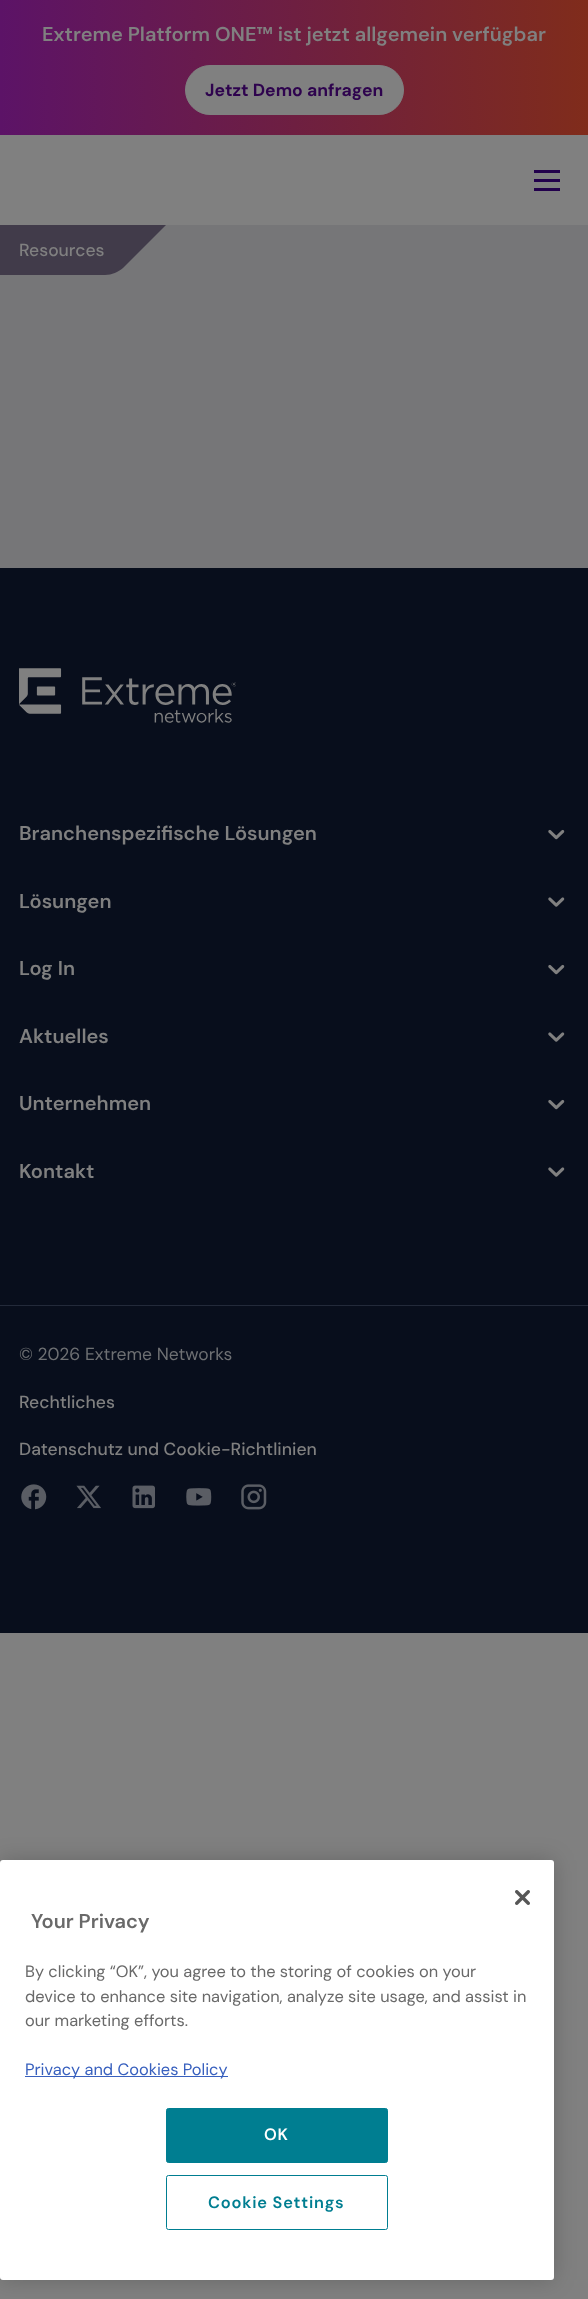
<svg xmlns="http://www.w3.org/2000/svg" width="588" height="2299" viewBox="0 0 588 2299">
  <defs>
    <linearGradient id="g1" gradientUnits="userSpaceOnUse" x1="0" y1="68" x2="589" y2="67"><stop offset="0" stop-color="#5c1367"/><stop offset="0.5" stop-color="#6e1f41"/><stop offset="1" stop-color="#802c1b"/></linearGradient>
    <filter id="blur1" x="-50%" y="-200%" width="200%" height="500%"><feGaussianBlur stdDeviation="11"/></filter>
  </defs>
  <rect width="100%" height="100%" fill="#808080"/>
  <rect x="0" y="0" width="588" height="135" fill="url(#g1)"/>
  <text x="42" y="41" font-family="DM Sans" font-size="20" font-weight="600" fill="#808080">Extreme Platform ONE™ ist jetzt allgemein verfügbar</text>
  <rect x="185.5" y="65.5" width="218" height="49" rx="24.5" fill="#808080" stroke="#808080"/>
  <text x="205" y="96" font-family="DM Sans" font-size="17.5" font-weight="bold" fill="#2e034e">Jetzt Demo anfragen</text>
  <rect x="534" y="179" width="26" height="3" fill="#22004c"/>
  <rect x="534" y="170" width="26" height="3" fill="#22004c"/>
  <rect x="534" y="188" width="26" height="3" fill="#22004c"/>
  <rect x="0" y="225" width="588" height="343" fill="#767678"/>
  <path d="M166 225L123 268C118 272 112 275 105 275H-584V225Z" fill="#413b4a"/>
  <text x="19" y="256" font-family="DM Sans" font-size="17.5" font-weight="500" fill="#808080">Resources</text>
  <rect x="0" y="568" width="588" height="737" fill="#080e1c"/>
  <image x="19" y="668" width="217" height="55" href="img1.png"/>
  <text x="19" y="840" font-family="DM Sans" font-size="20" font-weight="600" fill="#808080">Branchenspezifische Lösungen</text>
  <image x="548" y="829" width="17" height="11" href="img2.png"/>
  <text x="19" y="908" font-family="DM Sans" font-size="20" font-weight="600" fill="#808080">Lösungen</text>
  <image x="548" y="897" width="17" height="10" href="img3.png"/>
  <text x="19" y="975" font-family="DM Sans" font-size="20" font-weight="600" fill="#808080">Log In</text>
  <image x="548" y="964" width="17" height="11" href="img2.png"/>
  <text x="19" y="1043" font-family="DM Sans" font-size="20" font-weight="600" fill="#808080">Aktuelles</text>
  <image x="548" y="1032" width="17" height="10" href="img3.png"/>
  <text x="19" y="1110" font-family="DM Sans" font-size="20" font-weight="600" fill="#808080">Unternehmen</text>
  <image x="548" y="1099" width="17" height="11" href="img2.png"/>
  <text x="19" y="1178" font-family="DM Sans" font-size="20" font-weight="600" fill="#808080">Kontakt</text>
  <image x="548" y="1167" width="17" height="10" href="img3.png"/>
  <rect x="0" y="1306" width="588" height="327" fill="#080e1c"/>
  <rect x="0" y="1305" width="588" height="1" fill="#232a3a"/>
  <text x="19" y="1360" font-family="DM Sans" font-size="17.5" fill="#6e7073">© 2026 Extreme Networks</text>
  <text x="19" y="1408" font-family="DM Sans" font-size="17.5" font-weight="500" fill="#808080">Rechtliches</text>
  <text x="19" y="1455" font-family="DM Sans" font-size="17.5" font-weight="500" fill="#808080">Datenschutz und Cookie-Richtlinien</text>
  <image x="21" y="1484" width="26" height="26" href="img4.png"/>
  <image x="76" y="1485" width="25" height="24" href="img5.png"/>
  <image x="132" y="1485" width="23" height="24" href="img6.png"/>
  <image x="186" y="1488" width="26" height="18" href="img7.png"/>
  <image x="241" y="1484" width="26" height="26" href="img8.png"/>
  <rect x="0" y="1860" width="554" height="420" rx="3" fill="#000000" fill-opacity="0.2" filter="url(#blur1)"/>
  <rect x="0" y="1860" width="554" height="420" rx="3" fill="#ffffff"/>
  <image x="515" y="1890" width="15" height="15" href="img9.png"/>
  <text x="31" y="1928" font-family="DM Sans" font-size="20" font-weight="600" fill="#696969">Your Privacy</text>
  <text x="25" y="1977" font-family="DM Sans" font-size="16.4" fill="#696969">By clicking “OK”, you agree to the storing of cookies on your</text>
  <text x="25" y="2002" font-family="DM Sans" font-size="16.4" fill="#696969">device to enhance site navigation, analyze site usage, and assist in</text>
  <text x="25" y="2026" font-family="DM Sans" font-size="16.4" fill="#696969">our marketing efforts.</text>
  <rect x="25" y="2076" width="203" height="1" fill="#3860be"/>
  <text x="25" y="2075" font-family="DM Sans" font-size="16.4" fill="#3860be">Privacy and Cookies Policy</text>
  <rect x="166.5" y="2108.5" width="221" height="54" rx="2" fill="#007e91" stroke="#007e91"/>
  <text x="264" y="2140" font-family="DM Sans" font-size="16.4" font-weight="600" letter-spacing="0.8" fill="#ffffff">OK</text>
  <rect x="166.5" y="2175.5" width="221" height="54" rx="2" fill="none" stroke="#007e91"/>
  <text x="208" y="2208" font-family="DM Sans" font-size="16.4" font-weight="600" letter-spacing="0.8" fill="#007e91">Cookie Settings</text>
</svg>
